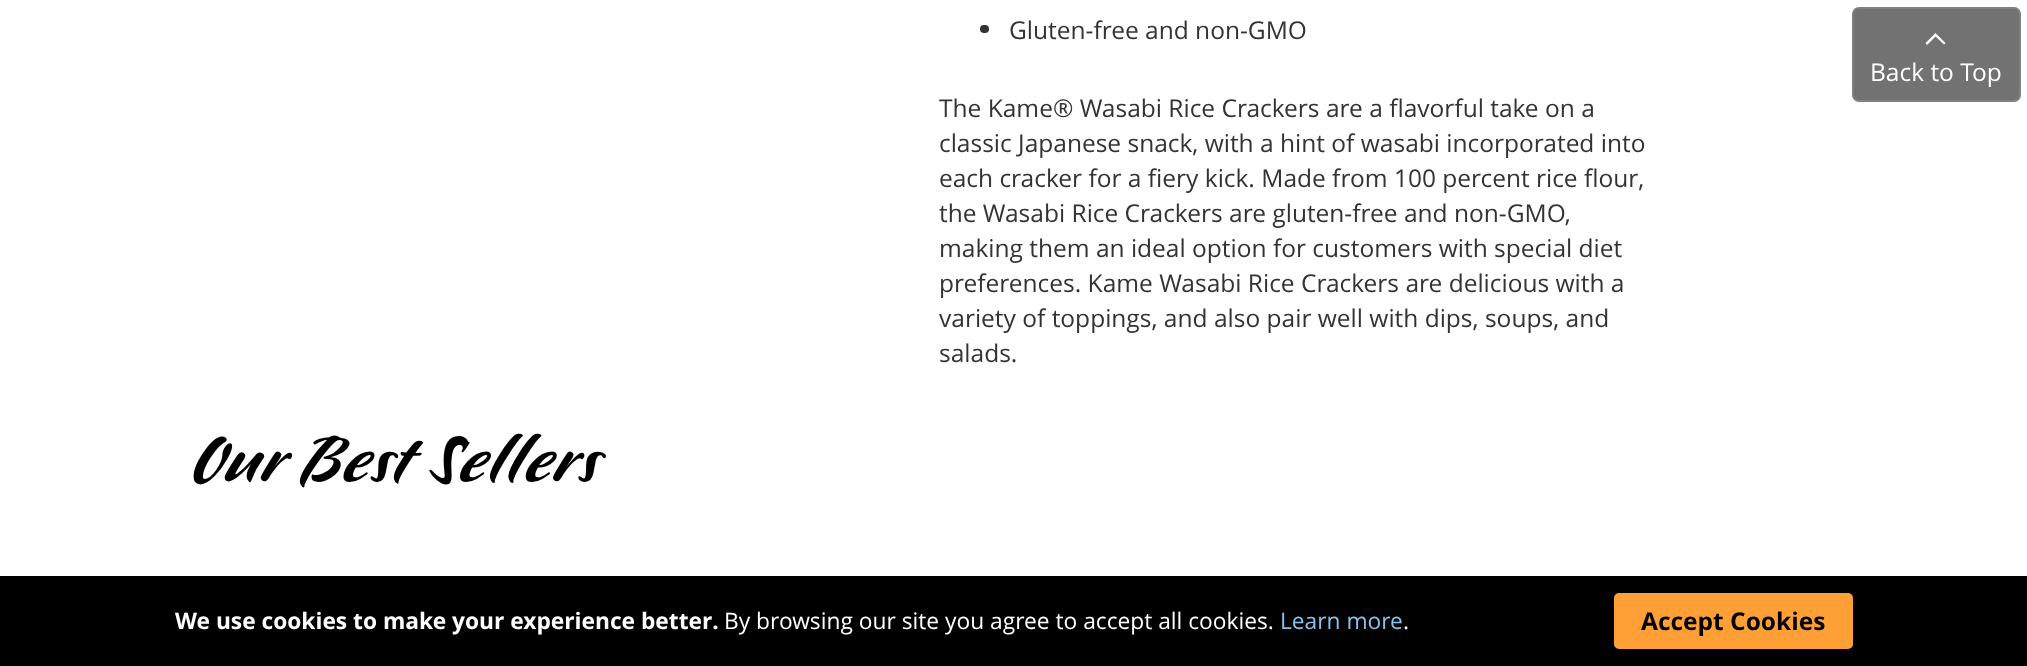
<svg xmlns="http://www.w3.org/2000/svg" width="2027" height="666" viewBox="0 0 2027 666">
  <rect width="100%" height="100%" fill="#ffffff"/>
  <rect x="980" y="25" width="9" height="8" rx="4" fill="#333333"/>
  <text x="1009" y="39" font-family="Open Sans" font-size="24.5" fill="#333333">Gluten-free and non-GMO</text>
  <text x="939" y="117" font-family="Open Sans" font-size="24.5" fill="#333333">The Kame® Wasabi Rice Crackers are a flavorful take on a</text>
  <text x="939" y="152" font-family="Open Sans" font-size="24.5" fill="#333333">classic Japanese snack, with a hint of wasabi incorporated into</text>
  <text x="939" y="187" font-family="Open Sans" font-size="24.5" fill="#333333">each cracker for a fiery kick. Made from 100 percent rice flour,</text>
  <text x="939" y="222" font-family="Open Sans" font-size="24.5" fill="#333333">the Wasabi Rice Crackers are gluten-free and non-GMO,</text>
  <text x="939" y="257" font-family="Open Sans" font-size="24.5" fill="#333333">making them an ideal option for customers with special diet</text>
  <text x="939" y="292" font-family="Open Sans" font-size="24.5" fill="#333333">preferences. Kame Wasabi Rice Crackers are delicious with a</text>
  <text x="939" y="327" font-family="Open Sans" font-size="24.5" fill="#333333">variety of toppings, and also pair well with dips, soups, and</text>
  <text x="939" y="362" font-family="Open Sans" font-size="24.5" fill="#333333">salads.</text>
  <image x="193" y="433" width="1443" height="143" href="img1.png"/>
  <rect x="1853" y="8" width="167" height="93" rx="6" fill="#727272" stroke="#808080" stroke-width="2"/>
  <path d="M1935.5 36.5L1944 44.5L1945.5 43L1935.5 33L1925.5 43L1927 45Z" fill="#ffffff"/>
  <text x="1870" y="81" font-family="Open Sans" font-size="24.5" fill="#ffffff">Back to Top</text>
  <rect x="0" y="576" width="2027" height="90" fill="#000000"/>
  <text x="175" y="629" font-family="Open Sans" font-size="22.75" font-weight="bold" fill="#ffffff">We use cookies to make your experience better.</text>
  <text x="724" y="629" font-family="Open Sans" font-size="22.75" fill="#ffffff">By browsing our site you agree to accept all cookies.</text>
  <text x="1280" y="629" font-family="Open Sans" font-size="22.75" fill="#8bc2ed">Learn more</text>
  <text x="1403" y="629" font-family="Open Sans" font-size="22.75" fill="#ffffff">.</text>
  <rect x="1615" y="594" width="237" height="54" rx="4" fill="#ffa036" stroke="#ffa036" stroke-width="2"/>
  <text x="1641" y="630" font-family="Open Sans" font-size="24.5" font-weight="bold" fill="#000000">Accept Cookies</text>
</svg>
